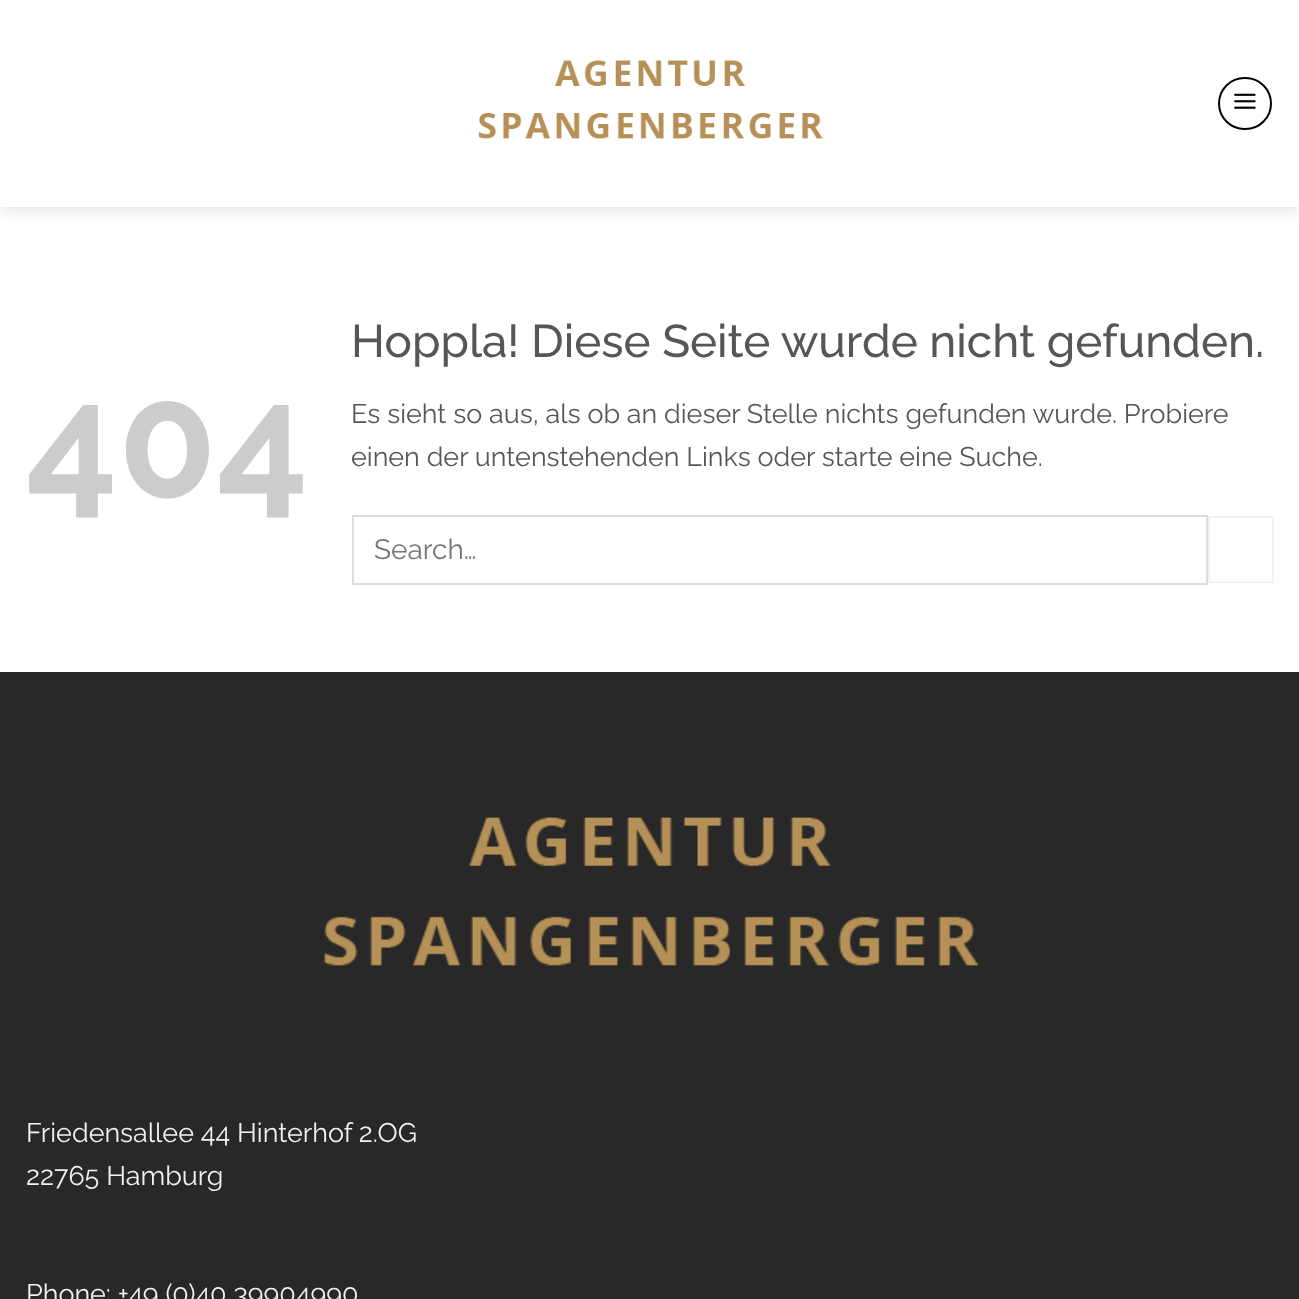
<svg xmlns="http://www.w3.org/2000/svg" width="1299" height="1299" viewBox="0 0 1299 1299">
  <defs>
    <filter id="blur1" x="-50%" y="-200%" width="200%" height="500%"><feGaussianBlur stdDeviation="9"/></filter>
  </defs>
  <rect width="100%" height="100%" fill="#ffffff"/>
  <rect x="2" y="2" width="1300" height="206" fill="#000000" fill-opacity="0.15" filter="url(#blur1)"/>
  <rect x="0" y="0" width="1299" height="207" fill="#ffffff"/>
  <image x="478" y="60" width="345" height="79" href="img1.png"/>
  <rect x="1219" y="78" width="52" height="51" rx="25.5" fill="none" stroke="#000000" stroke-width="2"/>
  <image x="1234" y="93" width="22" height="16" href="img2.png"/>
  <text x="26" y="497" font-family="Raleway" font-size="161" font-weight="bold" fill="#cccccc">404</text>
  <text x="351" y="357" font-family="Raleway" font-size="45.75" font-weight="500" fill="#565656">Hoppla! Diese Seite wurde nicht gefunden.</text>
  <text x="351" y="423" font-family="Raleway" font-size="26.9" fill="#565656">Es sieht so aus, als ob an dieser Stelle nichts gefunden wurde. Probiere</text>
  <text x="351" y="466" font-family="Raleway" font-size="26.9" fill="#565656">einen der untenstehenden Links oder starte eine Suche.</text>
  <rect x="353" y="516" width="854" height="68" fill="none" stroke="#dddddd" stroke-width="2"/>
  <text x="374" y="559" font-family="Raleway" font-size="28" fill="#757575">Search…</text>
  <rect x="1209" y="517" width="64" height="65" fill="none" stroke="#f2f2f2" stroke-width="2"/>
  <rect x="0" y="674" width="1299" height="625" fill="#282828"/>
  <rect x="0" y="672" width="1299" height="2" fill="#262626"/>
  <image x="323" y="817" width="656" height="149" href="img3.png"/>
  <text x="26" y="1142" font-family="Raleway" font-size="26.9" fill="#f1f1f1">Friedensallee 44 Hinterhof 2.OG</text>
  <text x="26" y="1185" font-family="Raleway" font-size="26.9" fill="#f1f1f1">22765 Hamburg</text>
  <text x="26" y="1303" font-family="Raleway" font-size="26.9" fill="#f1f1f1">Phone: +49 (0)40 39904990</text>
</svg>
